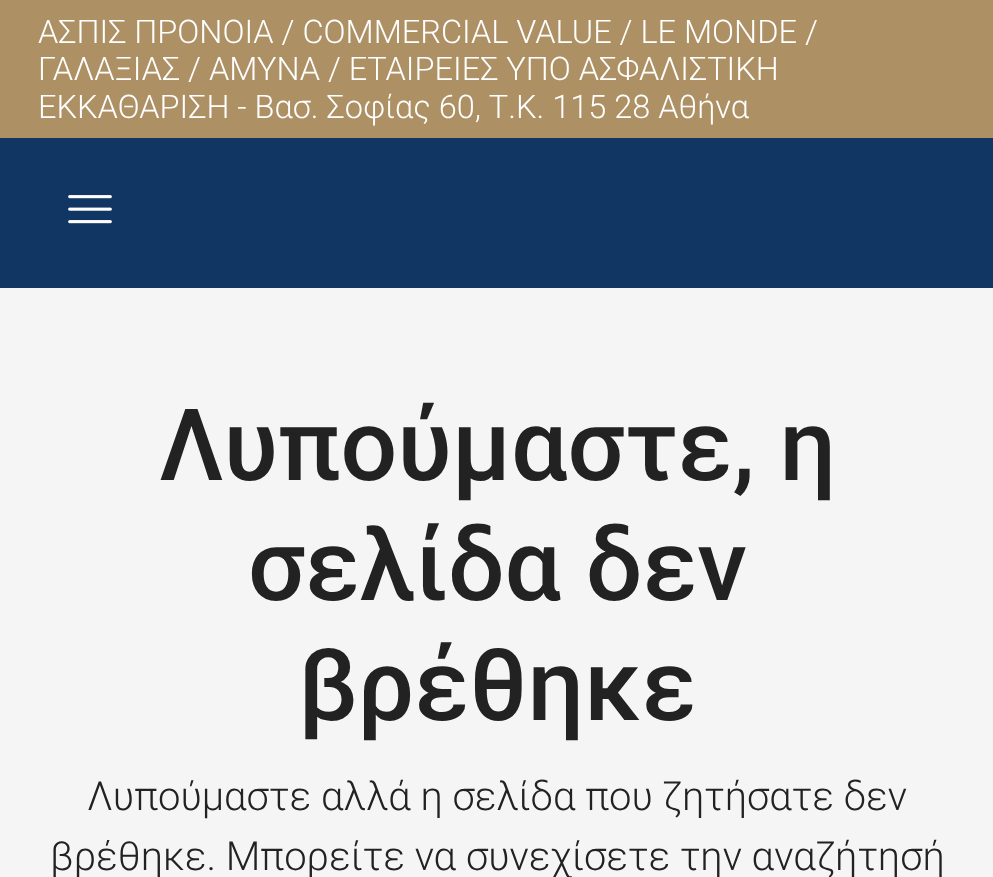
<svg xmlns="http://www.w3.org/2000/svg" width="993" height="877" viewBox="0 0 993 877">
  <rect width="100%" height="100%" fill="#f5f5f5"/>
  <rect x="0" y="0" width="993" height="138" fill="#ad9165"/>
  <text x="38" y="43" font-family="Roboto" font-size="32.5" font-weight="300" fill="#ffffff">ΑΣΠΙΣ ΠΡΟΝΟΙΑ / COMMERCIAL VALUE / LE MONDE /</text>
  <text x="38" y="80" font-family="Roboto" font-size="32.5" font-weight="300" fill="#ffffff">ΓΑΛΑΞΙΑΣ / ΑΜΥΝΑ / ΕΤΑΙΡΕΙΕΣ ΥΠΟ ΑΣΦΑΛΙΣΤΙΚΗ</text>
  <text x="38" y="118" font-family="Roboto" font-size="32.5" font-weight="300" fill="#ffffff">ΕΚΚΑΘΑΡΙΣΗ - Βασ. Σοφίας 60, Τ.Κ. 115 28 Αθήνα</text>
  <rect x="0" y="138" width="993" height="150" fill="#123663"/>
  <image x="68" y="195" width="44" height="29" href="img1.png"/>
  <text x="159" y="480" font-family="Roboto" font-size="100" font-weight="500" fill="#222222">Λυπούμαστε, η</text>
  <text x="248" y="600" font-family="Roboto" font-size="100" font-weight="500" fill="#222222">σελίδα δεν</text>
  <text x="298" y="720" font-family="Roboto" font-size="100" font-weight="500" fill="#222222">βρέθηκε</text>
  <text x="87" y="810" font-family="Roboto" font-size="40" font-weight="300" fill="#222222">Λυπούμαστε αλλά η σελίδα που ζητήσατε δεν</text>
  <text x="50" y="870" font-family="Roboto" font-size="40" font-weight="300" fill="#222222">βρέθηκε. Μπορείτε να συνεχίσετε την αναζήτησή</text>
</svg>
